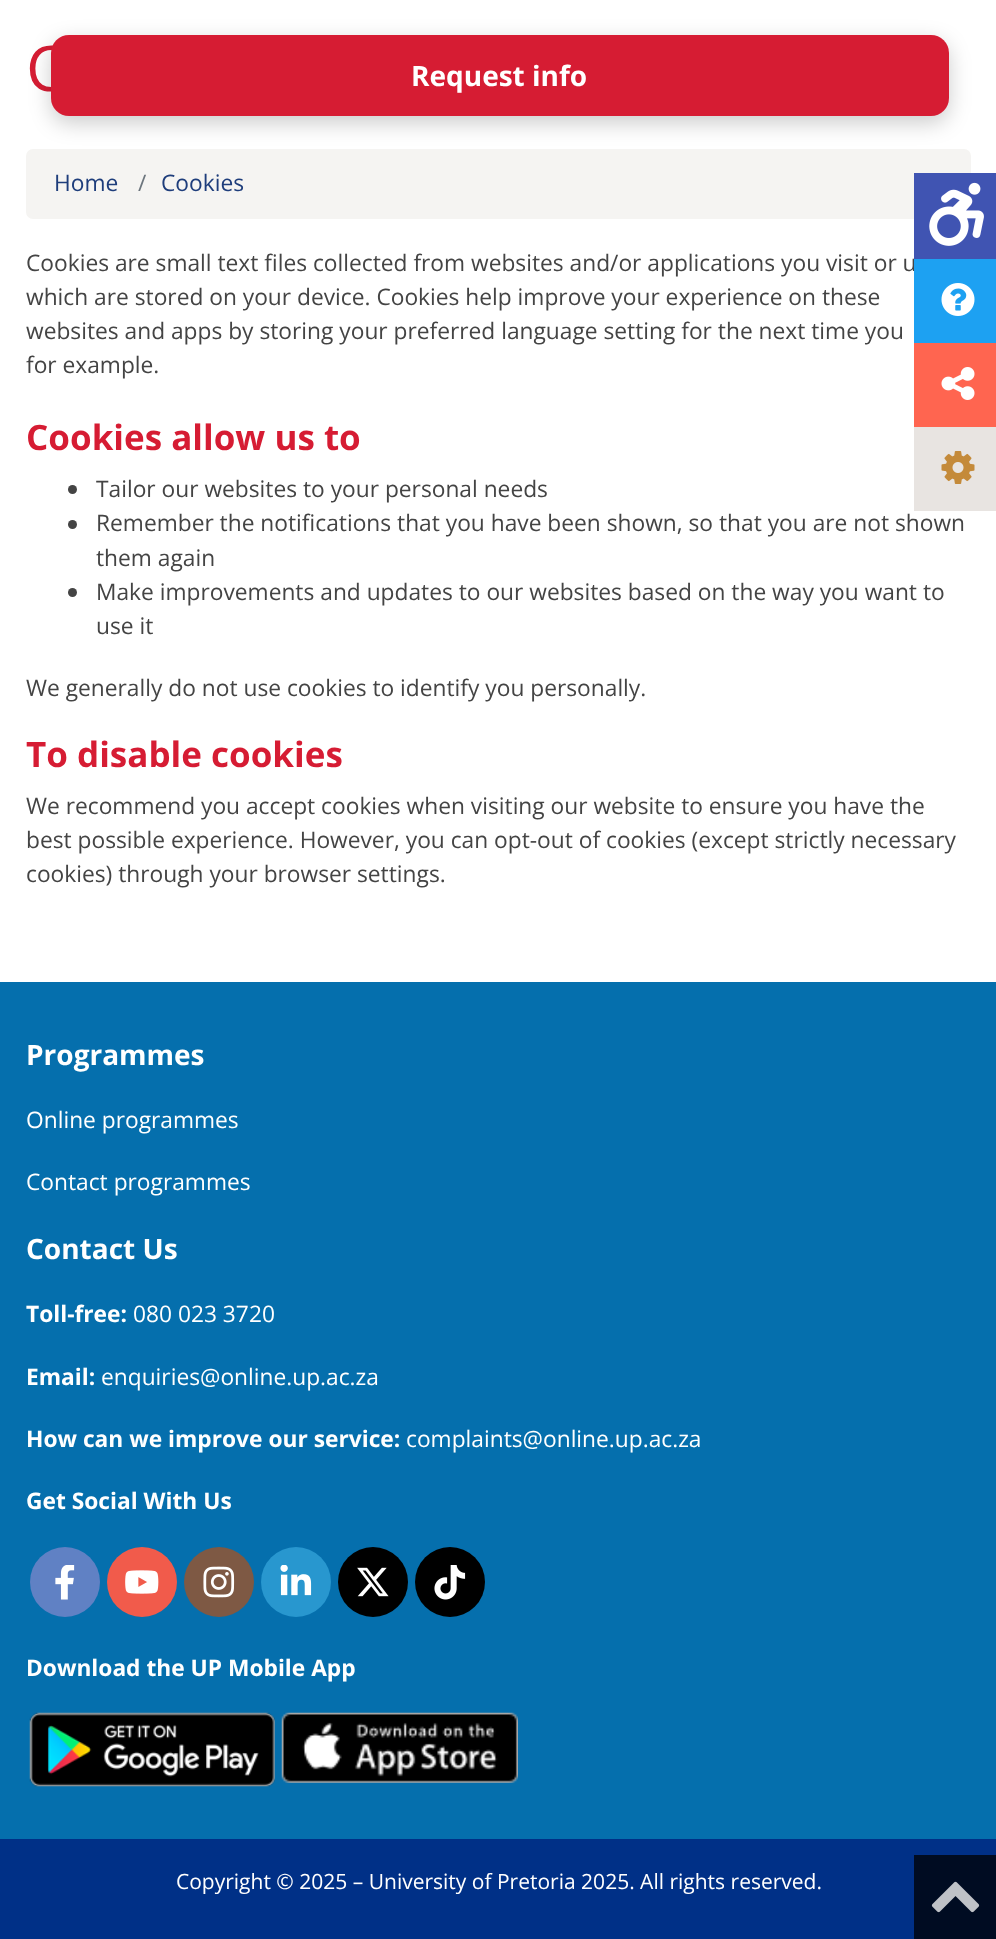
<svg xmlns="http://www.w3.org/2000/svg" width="996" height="1939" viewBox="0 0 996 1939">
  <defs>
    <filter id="blur1" x="-50%" y="-200%" width="200%" height="500%"><feGaussianBlur stdDeviation="10.5"/></filter>
  </defs>
  <rect width="100%" height="100%" fill="#ffffff"/>
  <text x="26" y="91" font-family="Open Sans" font-size="63" fill="#d61c33">C</text>
  <rect x="26" y="149" width="945" height="70" rx="7" fill="#f5f4f2"/>
  <text x="54" y="191" font-family="Open Sans" font-size="22.75" fill="#1e3d7b">Home</text>
  <text x="138" y="191" font-family="Open Sans" font-size="22.75" fill="#6c757d">/</text>
  <text x="161" y="191" font-family="Open Sans" font-size="22.75" fill="#1e3d7b">Cookies</text>
  <text x="26" y="271" font-family="Open Sans" font-size="22.75" fill="#444444">Cookies are small text files collected from websites and/or applications you visit or u</text>
  <text x="26" y="305" font-family="Open Sans" font-size="22.75" fill="#444444">which are stored on your device. Cookies help improve your experience on these</text>
  <text x="26" y="339" font-family="Open Sans" font-size="22.75" fill="#444444">websites and apps by storing your preferred language setting for the next time you</text>
  <text x="26" y="373" font-family="Open Sans" font-size="22.75" fill="#444444">for example.</text>
  <text x="26" y="450" font-family="Open Sans" font-size="35" font-weight="bold" fill="#d61c33">Cookies allow us to</text>
  <circle cx="72.5" cy="489.5" r="4.5" fill="#444444"/>
  <text x="96" y="497" font-family="Open Sans" font-size="22.75" fill="#444444">Tailor our websites to your personal needs</text>
  <circle cx="72.5" cy="524.5" r="4.5" fill="#444444"/>
  <text x="96" y="531" font-family="Open Sans" font-size="22.75" fill="#444444">Remember the notifications that you have been shown, so that you are not shown</text>
  <text x="96" y="566" font-family="Open Sans" font-size="22.75" fill="#444444">them again</text>
  <circle cx="72.5" cy="592.5" r="4.5" fill="#444444"/>
  <text x="96" y="600" font-family="Open Sans" font-size="22.75" fill="#444444">Make improvements and updates to our websites based on the way you want to</text>
  <text x="96" y="634" font-family="Open Sans" font-size="22.75" fill="#444444">use it</text>
  <text x="26" y="696" font-family="Open Sans" font-size="22.75" fill="#444444">We generally do not use cookies to identify you personally.</text>
  <text x="26" y="767" font-family="Open Sans" font-size="35" font-weight="bold" fill="#d61c33">To disable cookies</text>
  <text x="26" y="814" font-family="Open Sans" font-size="22.75" fill="#444444">We recommend you accept cookies when visiting our website to ensure you have the</text>
  <text x="26" y="848" font-family="Open Sans" font-size="22.75" fill="#444444">best possible experience. However, you can opt-out of cookies (except strictly necessary</text>
  <text x="26" y="882" font-family="Open Sans" font-size="22.75" fill="#444444">cookies) through your browser settings.</text>
  <rect x="51" y="42" width="898" height="81" rx="18" fill="#000000" fill-opacity="0.2" filter="url(#blur1)"/>
  <rect x="51" y="35" width="898" height="81" rx="18" fill="#d61c33"/>
  <text x="411" y="86" font-family="Open Sans" font-size="28" font-weight="bold" fill="#ffffff">Request info</text>
  <rect x="914" y="173" width="82" height="86" fill="#4054b2"/>
  <image x="929" y="182" width="55" height="64" href="img1.png"/>
  <rect x="914" y="259" width="82" height="84" fill="#1da1f2"/>
  <image x="941" y="283" width="34" height="33" href="img2.png"/>
  <rect x="914" y="343" width="82" height="84" fill="#ff6550"/>
  <image x="941" y="367" width="34" height="33" href="img3.png"/>
  <rect x="914" y="427" width="82" height="84" fill="#e8e4e1"/>
  <image x="941" y="451" width="34" height="33" href="img4.png"/>
  <rect x="0" y="982" width="996" height="857" fill="#056fad"/>
  <text x="26" y="1065" font-family="Open Sans" font-size="28" font-weight="bold" fill="#ffffff">Programmes</text>
  <text x="26" y="1128" font-family="Open Sans" font-size="22.75" fill="#ffffff">Online programmes</text>
  <text x="26" y="1190" font-family="Open Sans" font-size="22.75" fill="#ffffff">Contact programmes</text>
  <text x="26" y="1259" font-family="Open Sans" font-size="28" font-weight="bold" fill="#ffffff">Contact Us</text>
  <text x="26" y="1322" font-family="Open Sans" font-size="22.75" font-weight="bold" fill="#ffffff">Toll-free:</text>
  <text x="133" y="1322" font-family="Open Sans" font-size="22.75" fill="#ffffff">080 023 3720</text>
  <text x="26" y="1385" font-family="Open Sans" font-size="22.75" font-weight="bold" fill="#ffffff">Email:</text>
  <text x="101" y="1385" font-family="Open Sans" font-size="22.75" fill="#ffffff">enquiries@online.up.ac.za</text>
  <text x="26" y="1447" font-family="Open Sans" font-size="22.75" font-weight="bold" fill="#ffffff">How can we improve our service:</text>
  <text x="406" y="1447" font-family="Open Sans" font-size="22.75" fill="#ffffff">complaints@online.up.ac.za</text>
  <text x="26" y="1509" font-family="Open Sans" font-size="22.75" font-weight="bold" fill="#ffffff">Get Social With Us</text>
  <circle cx="65" cy="1582" r="35" fill="#6081c4"/>
  <image x="55" y="1565" width="20" height="35" href="img5.png"/>
  <circle cx="142" cy="1582" r="35" fill="#f15b4b"/>
  <image x="125" y="1570" width="34" height="24" href="img6.png"/>
  <circle cx="219" cy="1582" r="35" fill="#7e5944"/>
  <image x="203" y="1566" width="32" height="32" href="img7.png"/>
  <circle cx="296" cy="1582" r="35" fill="#2897cf"/>
  <image x="280" y="1565" width="32" height="31" href="img8.png"/>
  <circle cx="373" cy="1582" r="35" fill="#000000"/>
  <image x="357" y="1567" width="32" height="30" href="img9.png"/>
  <circle cx="450" cy="1582" r="35" fill="#000000"/>
  <image x="434" y="1565" width="32" height="35" href="img10.png"/>
  <text x="26" y="1676" font-family="Open Sans" font-size="22.75" font-weight="bold" fill="#ffffff">Download the UP Mobile App</text>
  <image x="29" y="1712" width="246" height="75" href="img11.png"/>
  <image x="281" y="1712" width="237" height="71" href="img12.png"/>
  <rect x="0" y="1839" width="996" height="100" fill="#003087"/>
  <text x="176" y="1889" font-family="Open Sans" font-size="21" fill="#ffffff">Copyright © 2025 – University of Pretoria 2025. All rights reserved.</text>
  <rect x="914" y="1855" width="82" height="84" fill="#000c22"/>
  <image x="931" y="1881" width="49" height="32" href="img13.png"/>
</svg>
